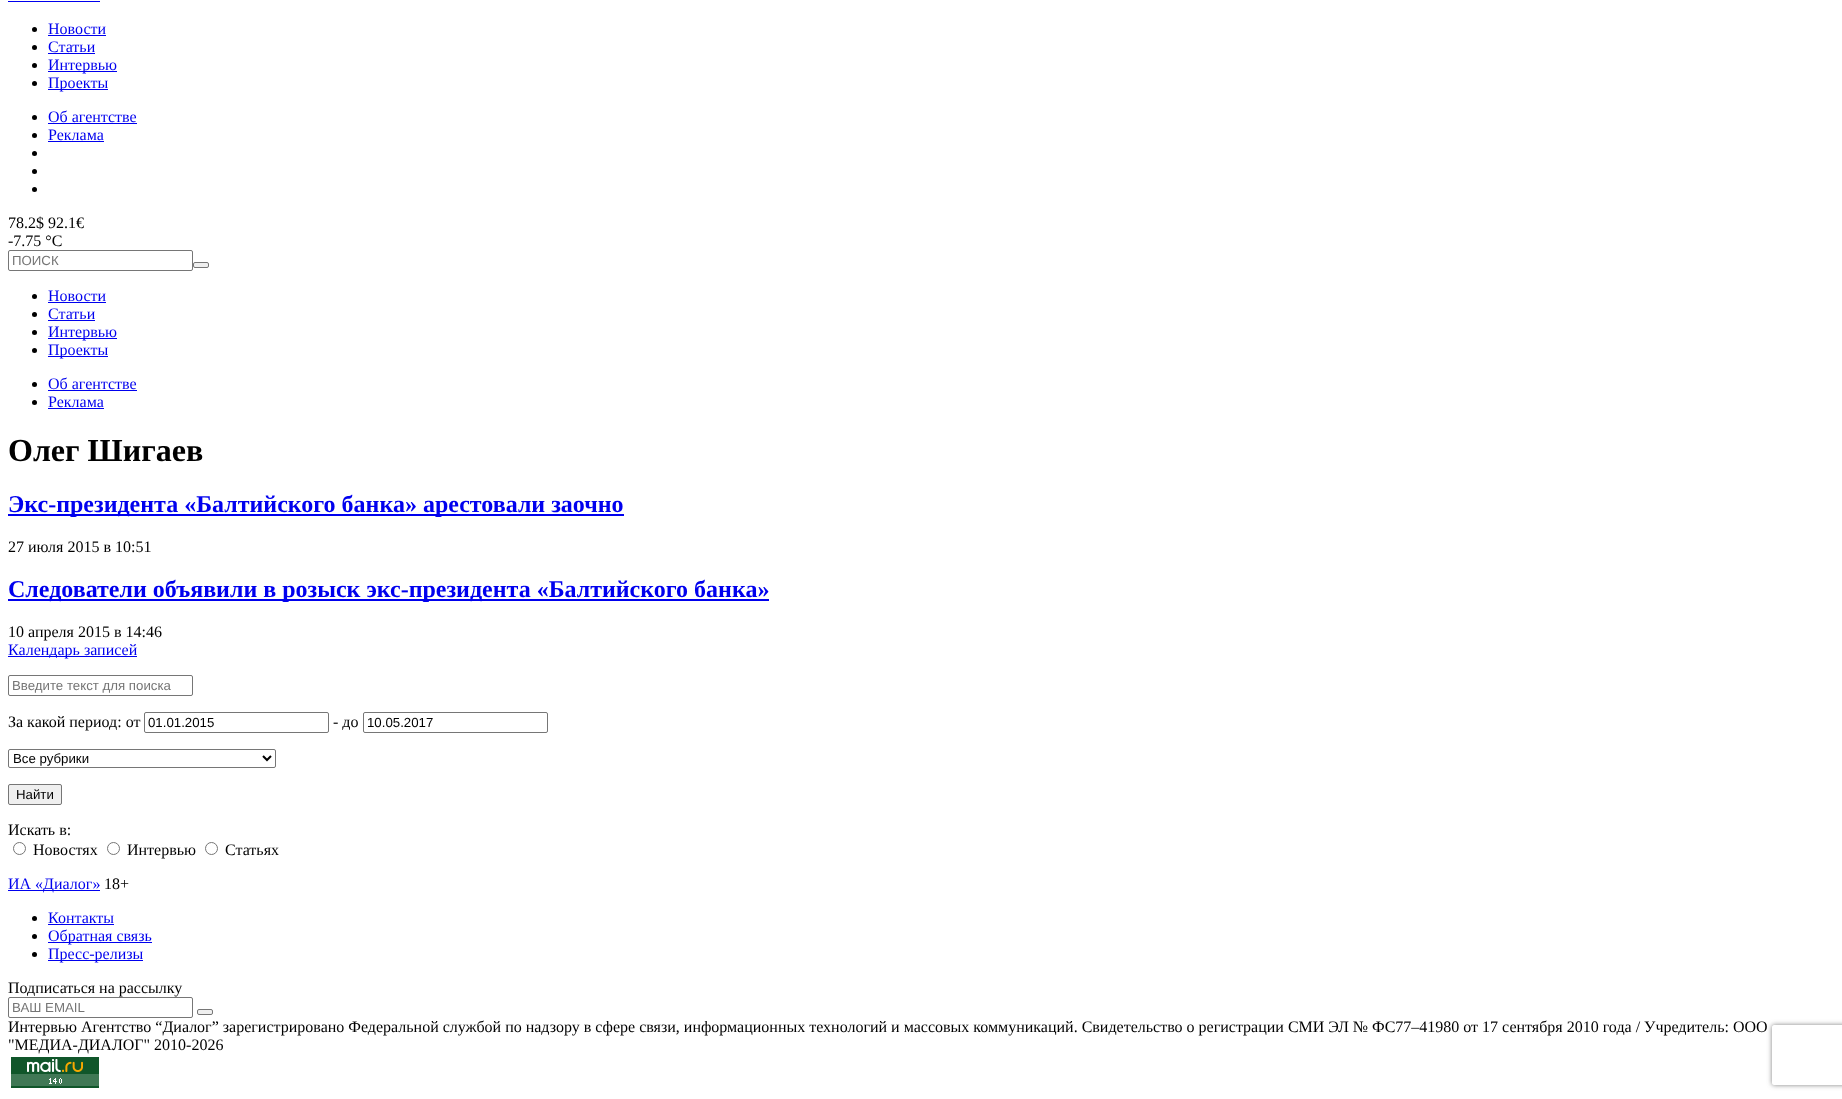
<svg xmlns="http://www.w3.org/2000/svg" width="1842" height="1099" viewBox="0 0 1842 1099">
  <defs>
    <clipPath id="clip1"><path d="M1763 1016H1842V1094H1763ZM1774 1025H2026C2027 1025 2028 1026 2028 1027V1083C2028 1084 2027 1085 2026 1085H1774C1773 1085 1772 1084 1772 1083V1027C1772 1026 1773 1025 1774 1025Z" clip-rule="evenodd"/></clipPath>
    <filter id="blur1" x="-50%" y="-200%" width="200%" height="500%"><feGaussianBlur stdDeviation="2.5"/></filter>
  </defs>
  <rect width="100%" height="100%" fill="#ffffff"/>
  <rect x="8" y="1" width="92" height="1" fill="#0000ee"/>
  <circle cx="34.5" cy="29.5" r="2.5" fill="#000000"/>
  <text x="48" y="34" font-family="Liberation Serif" font-size="16" fill="#0000ee">Новости</text>
  <rect x="48" y="35" width="58" height="1" fill="#0000ee"/>
  <circle cx="34.5" cy="47.5" r="2.5" fill="#000000"/>
  <text x="48" y="52" font-family="Liberation Serif" font-size="16" fill="#0000ee">Статьи</text>
  <rect x="48" y="53" width="47" height="1" fill="#0000ee"/>
  <circle cx="34.5" cy="65.5" r="2.5" fill="#000000"/>
  <rect x="48" y="71" width="69" height="1" fill="#0000ee"/>
  <text x="48" y="70" font-family="Liberation Serif" font-size="16" fill="#0000ee">Интервью</text>
  <circle cx="34.5" cy="83.5" r="2.5" fill="#000000"/>
  <rect x="48" y="89" width="60" height="1" fill="#0000ee"/>
  <text x="48" y="88" font-family="Liberation Serif" font-size="16" fill="#0000ee">Проекты</text>
  <circle cx="34.5" cy="117.5" r="2.5" fill="#000000"/>
  <text x="48" y="122" font-family="Liberation Serif" font-size="16" fill="#0000ee">Об агентстве</text>
  <rect x="48" y="123" width="89" height="1" fill="#0000ee"/>
  <circle cx="34.5" cy="135.5" r="2.5" fill="#000000"/>
  <text x="48" y="140" font-family="Liberation Serif" font-size="16" fill="#0000ee">Реклама</text>
  <rect x="48" y="141" width="56" height="1" fill="#0000ee"/>
  <circle cx="34.5" cy="153.5" r="2.5" fill="#000000"/>
  <circle cx="34.5" cy="171.5" r="2.5" fill="#000000"/>
  <circle cx="34.5" cy="189.5" r="2.5" fill="#000000"/>
  <text x="8" y="228" font-family="Liberation Serif" font-size="16" fill="#000000">78.2$ 92.1€</text>
  <text x="8" y="246" font-family="Liberation Serif" font-size="16" fill="#000000">-7.75 °С</text>
  <rect x="8.5" y="250.5" width="184" height="20" rx="1.5" fill="none" stroke="#767676"/>
  <text x="12" y="265" font-family="Liberation Sans" font-size="13.25" fill="#757575">ПОИСК</text>
  <rect x="193.5" y="262.5" width="15" height="5" rx="1.5" fill="#efefef" stroke="#767676"/>
  <circle cx="34.5" cy="296.5" r="2.5" fill="#000000"/>
  <text x="48" y="301" font-family="Liberation Serif" font-size="16" fill="#0000ee">Новости</text>
  <rect x="48" y="302" width="58" height="1" fill="#0000ee"/>
  <circle cx="34.5" cy="314.5" r="2.5" fill="#000000"/>
  <text x="48" y="319" font-family="Liberation Serif" font-size="16" fill="#0000ee">Статьи</text>
  <rect x="48" y="320" width="47" height="1" fill="#0000ee"/>
  <circle cx="34.5" cy="332.5" r="2.5" fill="#000000"/>
  <rect x="48" y="338" width="69" height="1" fill="#0000ee"/>
  <text x="48" y="337" font-family="Liberation Serif" font-size="16" fill="#0000ee">Интервью</text>
  <circle cx="34.5" cy="350.5" r="2.5" fill="#000000"/>
  <rect x="48" y="356" width="60" height="1" fill="#0000ee"/>
  <text x="48" y="355" font-family="Liberation Serif" font-size="16" fill="#0000ee">Проекты</text>
  <circle cx="34.5" cy="384.5" r="2.5" fill="#000000"/>
  <text x="48" y="389" font-family="Liberation Serif" font-size="16" fill="#0000ee">Об агентстве</text>
  <rect x="48" y="390" width="89" height="1" fill="#0000ee"/>
  <circle cx="34.5" cy="402.5" r="2.5" fill="#000000"/>
  <text x="48" y="407" font-family="Liberation Serif" font-size="16" fill="#0000ee">Реклама</text>
  <rect x="48" y="408" width="56" height="1" fill="#0000ee"/>
  <text x="8" y="461" font-family="Liberation Serif" font-size="32" font-weight="bold" fill="#000000">Олег Шигаев</text>
  <rect x="8" y="514" width="616" height="2" fill="#0000ee"/>
  <text x="8" y="512" font-family="Liberation Serif" font-size="24" font-weight="bold" fill="#0000ee">Экс-президента «Балтийского банка» арестовали заочно</text>
  <text x="8" y="552" font-family="Liberation Serif" font-size="16" fill="#000000">27 июля 2015 в 10:51</text>
  <rect x="8" y="599" width="761" height="2" fill="#0000ee"/>
  <text x="8" y="597" font-family="Liberation Serif" font-size="24" font-weight="bold" fill="#0000ee">Следователи объявили в розыск экс-президента «Балтийского банка»</text>
  <text x="8" y="637" font-family="Liberation Serif" font-size="16" fill="#000000">10 апреля 2015 в 14:46</text>
  <rect x="8" y="656" width="129" height="1" fill="#0000ee"/>
  <text x="8" y="655" font-family="Liberation Serif" font-size="16" fill="#0000ee">Календарь записей</text>
  <rect x="8.5" y="675.5" width="184" height="20" rx="1.5" fill="none" stroke="#767676"/>
  <text x="12" y="690" font-family="Liberation Sans" font-size="13.25" fill="#757575">Введите текст для поиска</text>
  <text x="8" y="727" font-family="Liberation Serif" font-size="16" fill="#000000">За какой период: от</text>
  <rect x="144.5" y="712.5" width="184" height="20" rx="1.5" fill="none" stroke="#767676"/>
  <text x="148" y="727" font-family="Liberation Sans" font-size="13.25" fill="#000000">01.01.2015</text>
  <text x="333" y="727" font-family="Liberation Serif" font-size="16" fill="#000000">- до</text>
  <rect x="363.5" y="712.5" width="184" height="20" rx="1.5" fill="none" stroke="#767676"/>
  <text x="367" y="727" font-family="Liberation Sans" font-size="13.25" fill="#000000">10.05.2017</text>
  <rect x="8.5" y="749.5" width="267" height="18" rx="1.5" fill="none" stroke="#767676"/>
  <path d="M263 756L267 760L271 756" fill="none" stroke="#000000" stroke-width="2"/>
  <text x="13" y="763" font-family="Liberation Sans" font-size="13.25" fill="#000000">Все рубрики</text>
  <rect x="8.5" y="784.5" width="53" height="20" rx="1.5" fill="#efefef" stroke="#767676"/>
  <text x="16" y="799" font-family="Liberation Sans" font-size="13.25" fill="#000000">Найти</text>
  <text x="8" y="835" font-family="Liberation Serif" font-size="16" fill="#000000">Искать в:</text>
  <circle cx="19.5" cy="848.5" r="6" fill="none" stroke="#767676"/>
  <text x="33" y="855" font-family="Liberation Serif" font-size="16" fill="#000000">Новостях</text>
  <circle cx="113.5" cy="848.5" r="6" fill="none" stroke="#767676"/>
  <text x="127" y="855" font-family="Liberation Serif" font-size="16" fill="#000000">Интервью</text>
  <circle cx="211.5" cy="848.5" r="6" fill="none" stroke="#767676"/>
  <text x="225" y="855" font-family="Liberation Serif" font-size="16" fill="#000000">Статьях</text>
  <rect x="8" y="890" width="92" height="1" fill="#0000ee"/>
  <text x="8" y="889" font-family="Liberation Serif" font-size="16" fill="#0000ee">ИА «Диалог»</text>
  <text x="104" y="889" font-family="Liberation Serif" font-size="16" fill="#000000">18+</text>
  <circle cx="34.5" cy="918.5" r="2.5" fill="#000000"/>
  <text x="48" y="923" font-family="Liberation Serif" font-size="16" fill="#0000ee">Контакты</text>
  <rect x="48" y="924" width="66" height="1" fill="#0000ee"/>
  <circle cx="34.5" cy="936.5" r="2.5" fill="#000000"/>
  <rect x="48" y="942" width="104" height="1" fill="#0000ee"/>
  <text x="48" y="941" font-family="Liberation Serif" font-size="16" fill="#0000ee">Обратная связь</text>
  <circle cx="34.5" cy="954.5" r="2.5" fill="#000000"/>
  <rect x="48" y="960" width="95" height="1" fill="#0000ee"/>
  <text x="48" y="959" font-family="Liberation Serif" font-size="16" fill="#0000ee">Пресс-релизы</text>
  <text x="8" y="993" font-family="Liberation Serif" font-size="16" fill="#000000">Подписаться на рассылку</text>
  <rect x="8.5" y="997.5" width="184" height="20" rx="1.5" fill="none" stroke="#767676"/>
  <text x="12" y="1012" font-family="Liberation Sans" font-size="13.25" fill="#757575">ВАШ EMAIL</text>
  <rect x="197.5" y="1009.5" width="15" height="5" rx="1.5" fill="#efefef" stroke="#767676"/>
  <text x="8" y="1032" font-family="Liberation Serif" font-size="16" fill="#000000">Интервью Агентство “Диалог” зарегистрировано Федеральной службой по надзору в сфере связи, информационных технологий и массовых коммуникаций. Свидетельство о регистрации СМИ ЭЛ № ФС77–41980 от 17 сентября 2010 года / Учредитель: ООО</text>
  <text x="8" y="1050" font-family="Liberation Serif" font-size="16" fill="#000000">"МЕДИА-ДИАЛОГ" 2010-2026</text>
  <image x="11" y="1057" width="88" height="31" href="img1.png"/>
  <g clip-path="url(#clip1)">
    <rect x="1772" y="1025" width="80" height="60" rx="2" fill="#808080" filter="url(#blur1)"/>
  </g>
</svg>
